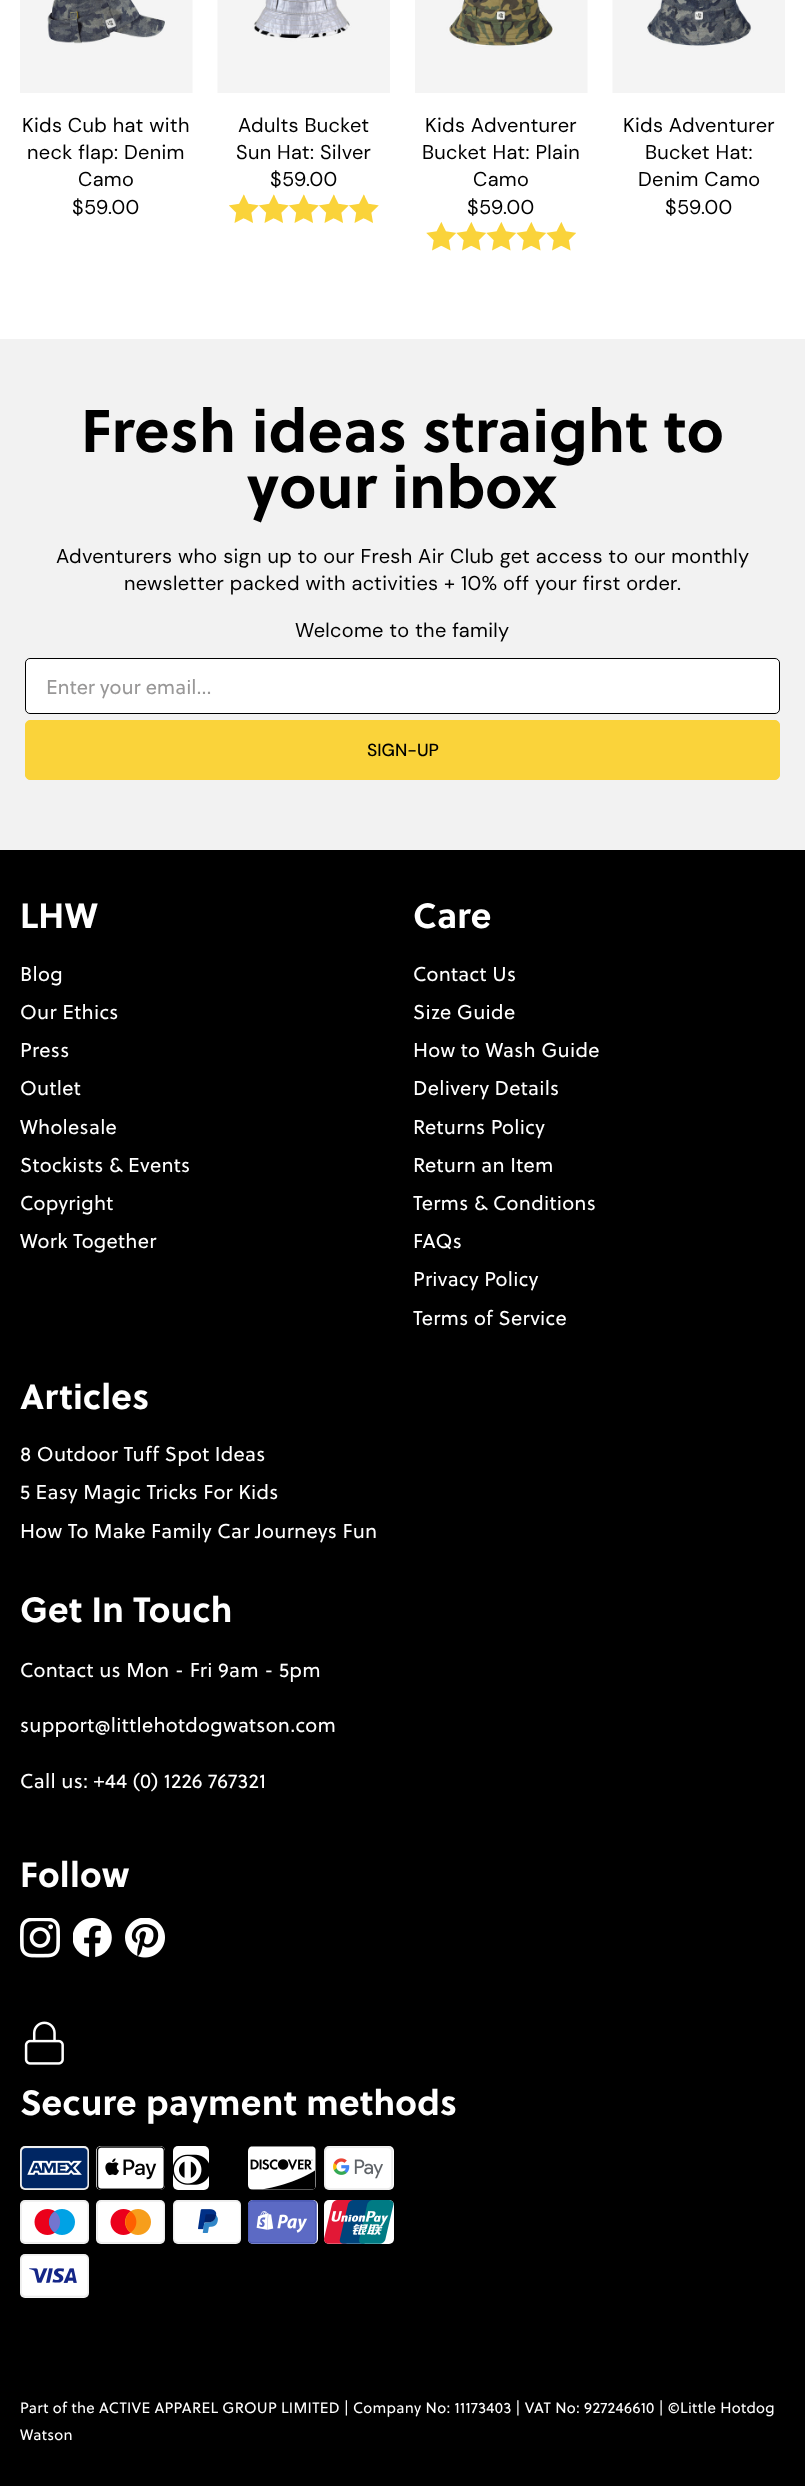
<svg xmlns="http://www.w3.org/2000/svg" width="805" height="2486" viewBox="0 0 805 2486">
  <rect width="100%" height="100%" fill="#ffffff"/>
  <image x="20" y="0" width="173" height="93" href="img1.png"/>
  <text x="22" y="132" font-family="DM Sans" font-size="20" letter-spacing="0.3" fill="#000000">Kids Cub hat with</text>
  <text x="27" y="159" font-family="DM Sans" font-size="20" letter-spacing="0.3" fill="#000000">neck flap: Denim</text>
  <text x="78" y="186" font-family="DM Sans" font-size="20" letter-spacing="0.3" fill="#000000">Camo</text>
  <text x="72" y="214" font-family="DM Sans" font-size="20" letter-spacing="0.3" fill="#000000">$59.00</text>
  <image x="217" y="0" width="173" height="93" href="img2.png"/>
  <text x="238" y="132" font-family="DM Sans" font-size="20" letter-spacing="0.3" fill="#000000">Adults Bucket</text>
  <text x="236" y="159" font-family="DM Sans" font-size="20" letter-spacing="0.3" fill="#000000">Sun Hat: Silver</text>
  <text x="270" y="186" font-family="DM Sans" font-size="20" letter-spacing="0.3" fill="#000000">$59.00</text>
  <image x="229" y="194" width="30" height="29" href="img3.png"/>
  <image x="259" y="194" width="30" height="29" href="img3.png"/>
  <image x="289" y="194" width="30" height="29" href="img3.png"/>
  <image x="319" y="194" width="30" height="29" href="img3.png"/>
  <image x="349" y="194" width="30" height="29" href="img3.png"/>
  <image x="415" y="0" width="173" height="93" href="img4.png"/>
  <text x="425" y="132" font-family="DM Sans" font-size="20" letter-spacing="0.3" fill="#000000">Kids Adventurer</text>
  <text x="422" y="159" font-family="DM Sans" font-size="20" letter-spacing="0.3" fill="#000000">Bucket Hat: Plain</text>
  <text x="473" y="186" font-family="DM Sans" font-size="20" letter-spacing="0.3" fill="#000000">Camo</text>
  <text x="467" y="214" font-family="DM Sans" font-size="20" letter-spacing="0.3" fill="#000000">$59.00</text>
  <image x="426" y="222" width="30" height="29" href="img5.png"/>
  <image x="456" y="222" width="30" height="29" href="img5.png"/>
  <image x="486" y="222" width="30" height="29" href="img5.png"/>
  <image x="516" y="222" width="30" height="29" href="img5.png"/>
  <image x="546" y="222" width="30" height="29" href="img5.png"/>
  <image x="612" y="0" width="173" height="93" href="img6.png"/>
  <text x="623" y="132" font-family="DM Sans" font-size="20" letter-spacing="0.3" fill="#000000">Kids Adventurer</text>
  <text x="645" y="159" font-family="DM Sans" font-size="20" letter-spacing="0.3" fill="#000000">Bucket Hat:</text>
  <text x="638" y="186" font-family="DM Sans" font-size="20" letter-spacing="0.3" fill="#000000">Denim Camo</text>
  <text x="665" y="214" font-family="DM Sans" font-size="20" letter-spacing="0.3" fill="#000000">$59.00</text>
  <rect x="0" y="339" width="805" height="511" fill="#f2f2f2"/>
  <text x="81" y="452" font-family="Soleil" font-size="60" font-weight="bold" letter-spacing="0.3" fill="#000000">Fresh ideas straight to</text>
  <text x="247" y="508" font-family="Soleil" font-size="60" font-weight="bold" letter-spacing="0.3" fill="#000000">your inbox</text>
  <text x="56" y="563" font-family="DM Sans" font-size="20" letter-spacing="0.3" fill="#000000">Adventurers who sign up to our Fresh Air Club get access to our monthly</text>
  <text x="124" y="590" font-family="DM Sans" font-size="20" letter-spacing="0.3" fill="#000000">newsletter packed with activities + 10% off your first order.</text>
  <text x="295" y="637" font-family="DM Sans" font-size="20" letter-spacing="0.3" fill="#000000">Welcome to the family</text>
  <rect x="25.5" y="658.5" width="754" height="55" rx="4.5" fill="#ffffff" stroke="#000000"/>
  <text x="46" y="694" font-family="Soleil" font-size="20" fill="#999898">Enter your email…</text>
  <rect x="25.5" y="720.5" width="754" height="59" rx="4.5" fill="#fad33a" stroke="#fad33a"/>
  <text x="367" y="756" font-family="DM Sans" font-size="17.5" font-weight="500" fill="#000000">SIGN-UP</text>
  <rect x="0" y="850" width="805" height="1636" fill="#000000"/>
  <text x="20" y="928" font-family="Soleil" font-size="35" font-weight="bold" letter-spacing="0.3" fill="#ffffff">LHW</text>
  <text x="20" y="981" font-family="Soleil" font-size="20" letter-spacing="0.3" fill="#ffffff">Blog</text>
  <text x="20" y="1019" font-family="Soleil" font-size="20" letter-spacing="0.3" fill="#ffffff">Our Ethics</text>
  <text x="20" y="1057" font-family="Soleil" font-size="20" letter-spacing="0.3" fill="#ffffff">Press</text>
  <text x="20" y="1095" font-family="Soleil" font-size="20" letter-spacing="0.3" fill="#ffffff">Outlet</text>
  <text x="20" y="1134" font-family="Soleil" font-size="20" letter-spacing="0.3" fill="#ffffff">Wholesale</text>
  <text x="20" y="1172" font-family="Soleil" font-size="20" letter-spacing="0.3" fill="#ffffff">Stockists &amp; Events</text>
  <text x="20" y="1210" font-family="Soleil" font-size="20" letter-spacing="0.3" fill="#ffffff">Copyright</text>
  <text x="20" y="1248" font-family="Soleil" font-size="20" letter-spacing="0.3" fill="#ffffff">Work Together</text>
  <text x="413" y="928" font-family="Soleil" font-size="35" font-weight="bold" letter-spacing="0.3" fill="#ffffff">Care</text>
  <text x="413" y="981" font-family="Soleil" font-size="20" letter-spacing="0.3" fill="#ffffff">Contact Us</text>
  <text x="413" y="1019" font-family="Soleil" font-size="20" letter-spacing="0.3" fill="#ffffff">Size Guide</text>
  <text x="413" y="1057" font-family="Soleil" font-size="20" letter-spacing="0.3" fill="#ffffff">How to Wash Guide</text>
  <text x="413" y="1095" font-family="Soleil" font-size="20" letter-spacing="0.3" fill="#ffffff">Delivery Details</text>
  <text x="413" y="1134" font-family="Soleil" font-size="20" letter-spacing="0.3" fill="#ffffff">Returns Policy</text>
  <text x="413" y="1172" font-family="Soleil" font-size="20" letter-spacing="0.3" fill="#ffffff">Return an Item</text>
  <text x="413" y="1210" font-family="Soleil" font-size="20" letter-spacing="0.3" fill="#ffffff">Terms &amp; Conditions</text>
  <text x="413" y="1248" font-family="Soleil" font-size="20" letter-spacing="0.3" fill="#ffffff">FAQs</text>
  <text x="413" y="1286" font-family="Soleil" font-size="20" letter-spacing="0.3" fill="#ffffff">Privacy Policy</text>
  <text x="413" y="1325" font-family="Soleil" font-size="20" letter-spacing="0.3" fill="#ffffff">Terms of Service</text>
  <text x="20" y="1409" font-family="Soleil" font-size="35" font-weight="bold" letter-spacing="0.3" fill="#ffffff">Articles</text>
  <text x="20" y="1461" font-family="Soleil" font-size="20" letter-spacing="0.3" fill="#ffffff">8 Outdoor Tuff Spot Ideas</text>
  <text x="20" y="1499" font-family="Soleil" font-size="20" letter-spacing="0.3" fill="#ffffff">5 Easy Magic Tricks For Kids</text>
  <text x="20" y="1538" font-family="Soleil" font-size="20" letter-spacing="0.3" fill="#ffffff">How To Make Family Car Journeys Fun</text>
  <text x="20" y="1622" font-family="Soleil" font-size="35" font-weight="bold" letter-spacing="0.3" fill="#ffffff">Get In Touch</text>
  <text x="20" y="1677" font-family="Soleil" font-size="20" letter-spacing="0.3" fill="#ffffff">Contact us Mon - Fri 9am - 5pm</text>
  <text x="20" y="1732" font-family="Soleil" font-size="20" letter-spacing="0.3" fill="#ffffff">support@littlehotdogwatson.com</text>
  <text x="20" y="1788" font-family="Soleil" font-size="20" letter-spacing="0.3" fill="#ffffff">Call us: +44 (0) 1226 767321</text>
  <text x="20" y="1887" font-family="Soleil" font-size="35" font-weight="bold" letter-spacing="0.3" fill="#ffffff">Follow</text>
  <image x="20" y="1918" width="40" height="40" href="img7.png"/>
  <image x="73" y="1918" width="39" height="39" href="img8.png"/>
  <image x="125" y="1918" width="40" height="40" href="img9.png"/>
  <image x="24" y="2021" width="40" height="44" href="img10.png"/>
  <text x="20" y="2115" font-family="Soleil" font-size="35" font-weight="bold" letter-spacing="0.3" fill="#ffffff">Secure payment methods</text>
  <rect x="20" y="2146" width="69" height="44" rx="5" fill="#ffffff"/>
  <image x="20" y="2146" width="69" height="44" href="img11.png"/>
  <rect x="96" y="2146" width="69" height="44" rx="5" fill="#ffffff"/>
  <image x="96" y="2146" width="69" height="44" href="img12.png"/>
  <rect x="173" y="2146" width="36" height="44" rx="5" fill="#ffffff"/>
  <image x="173" y="2154" width="36" height="31" href="img13.png"/>
  <rect x="248" y="2146" width="68" height="44" rx="5" fill="#ffffff"/>
  <image x="250" y="2146" width="66" height="44" href="img14.png"/>
  <rect x="324" y="2146" width="70" height="44" rx="5" fill="#ffffff"/>
  <image x="324" y="2146" width="69" height="44" href="img15.png"/>
  <rect x="20" y="2200" width="69" height="44" rx="5" fill="#ffffff"/>
  <image x="20" y="2200" width="69" height="44" href="img16.png"/>
  <rect x="96" y="2200" width="69" height="44" rx="5" fill="#ffffff"/>
  <image x="96" y="2200" width="69" height="44" href="img17.png"/>
  <rect x="173" y="2200" width="68" height="44" rx="5" fill="#ffffff"/>
  <image x="173" y="2200" width="68" height="44" href="img18.png"/>
  <rect x="248" y="2200" width="70" height="44" rx="5" fill="#ffffff"/>
  <image x="248" y="2200" width="69" height="44" href="img19.png"/>
  <rect x="324" y="2200" width="70" height="44" rx="5" fill="#ffffff"/>
  <image x="324" y="2200" width="70" height="44" href="img20.png"/>
  <rect x="20" y="2254" width="69" height="44" rx="5" fill="#ffffff"/>
  <image x="20" y="2254" width="69" height="44" href="img21.png"/>
  <text x="20" y="2413" font-family="Soleil" font-size="15" letter-spacing="0.3" fill="#ffffff">Part of the ACTIVE APPAREL GROUP LIMITED | Company No: 11173403 | VAT No: 927246610 | ©Little Hotdog</text>
  <text x="20" y="2440" font-family="Soleil" font-size="15" letter-spacing="0.3" fill="#ffffff">Watson</text>
</svg>
